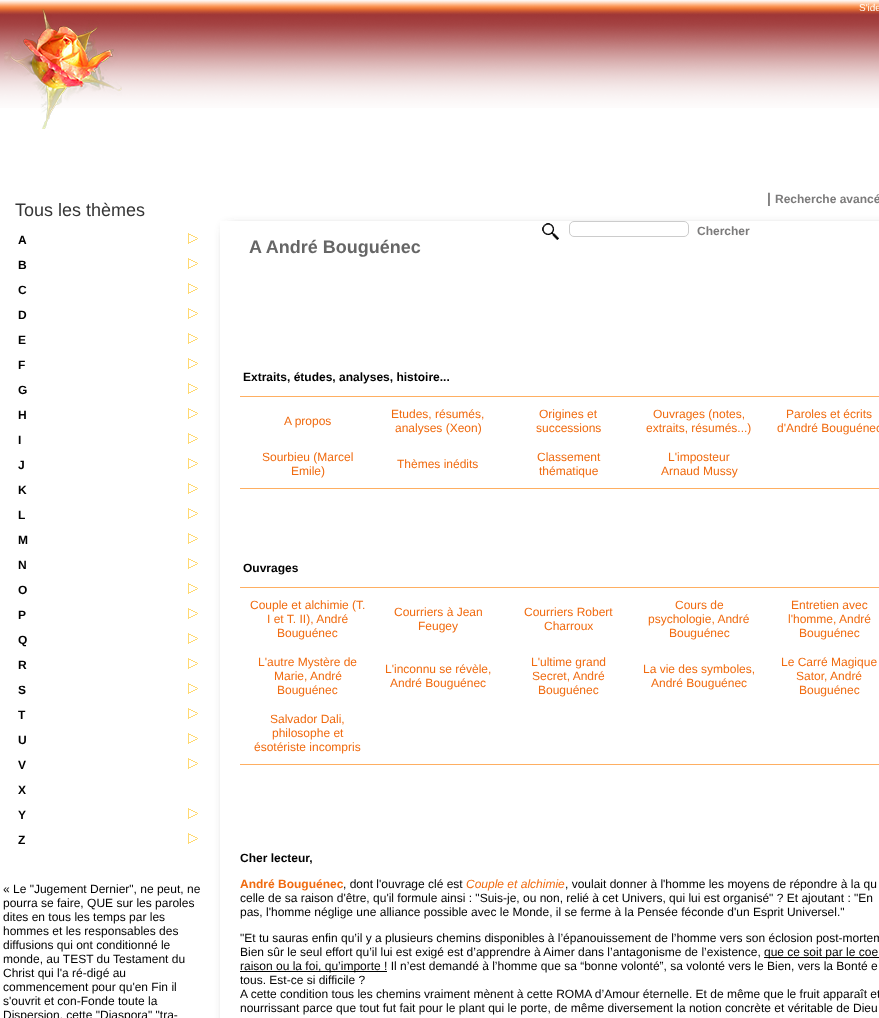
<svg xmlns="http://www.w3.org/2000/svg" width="879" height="1018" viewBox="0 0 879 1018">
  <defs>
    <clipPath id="clip1"><path d="M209 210H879V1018H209ZM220 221H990V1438H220Z" clip-rule="evenodd"/></clipPath>
    <filter id="blur1" x="-50%" y="-200%" width="200%" height="500%"><feGaussianBlur stdDeviation="6"/></filter>
  </defs>
  <rect width="100%" height="100%" fill="#ffffff"/>
  <image x="0" y="0" width="879" height="108" href="img1.png"/>
  <text x="859" y="11" font-family="Liberation Sans" font-size="10" fill="#ffffff">S'ide</text>
  <image x="4" y="9" width="118" height="120" href="img2.png"/>
  <g clip-path="url(#clip1)">
    <rect x="228" y="229" width="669" height="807" fill="#555555" filter="url(#blur1)"/>
  </g>
  <image x="542" y="223" width="17" height="17" href="img3.png"/>
  <text x="767" y="203" font-family="Liberation Sans" font-size="14" font-weight="bold" fill="#7c7b7b">|</text>
  <text x="775" y="203" font-family="Liberation Sans" font-size="12" font-weight="bold" fill="#7c7b7b">Recherche avancé</text>
  <rect x="569.5" y="221.5" width="119" height="15" rx="4.5" fill="none" stroke="#cccccc"/>
  <text x="697" y="235" font-family="Liberation Sans" font-size="12" font-weight="bold" fill="#7c7b7b">Chercher</text>
  <text x="15" y="216" font-family="Liberation Sans" font-size="18" fill="#363636">Tous les thèmes</text>
  <text x="18" y="244" font-family="Liberation Sans" font-size="12" font-weight="bold" fill="#000000">A</text>
  <image x="188" y="233" width="10" height="11" href="img4.png"/>
  <text x="18" y="269" font-family="Liberation Sans" font-size="12" font-weight="bold" fill="#000000">B</text>
  <image x="188" y="258" width="10" height="11" href="img4.png"/>
  <text x="18" y="294" font-family="Liberation Sans" font-size="12" font-weight="bold" fill="#000000">C</text>
  <image x="188" y="283" width="10" height="11" href="img4.png"/>
  <text x="18" y="319" font-family="Liberation Sans" font-size="12" font-weight="bold" fill="#000000">D</text>
  <image x="188" y="308" width="10" height="11" href="img4.png"/>
  <text x="18" y="344" font-family="Liberation Sans" font-size="12" font-weight="bold" fill="#000000">E</text>
  <image x="188" y="333" width="10" height="11" href="img4.png"/>
  <text x="18" y="369" font-family="Liberation Sans" font-size="12" font-weight="bold" fill="#000000">F</text>
  <image x="188" y="358" width="10" height="11" href="img4.png"/>
  <text x="18" y="394" font-family="Liberation Sans" font-size="12" font-weight="bold" fill="#000000">G</text>
  <image x="188" y="383" width="10" height="11" href="img4.png"/>
  <text x="18" y="419" font-family="Liberation Sans" font-size="12" font-weight="bold" fill="#000000">H</text>
  <image x="188" y="408" width="10" height="11" href="img4.png"/>
  <text x="18" y="444" font-family="Liberation Sans" font-size="12" font-weight="bold" fill="#000000">I</text>
  <image x="188" y="433" width="10" height="11" href="img4.png"/>
  <text x="18" y="469" font-family="Liberation Sans" font-size="12" font-weight="bold" fill="#000000">J</text>
  <image x="188" y="458" width="10" height="11" href="img4.png"/>
  <text x="18" y="494" font-family="Liberation Sans" font-size="12" font-weight="bold" fill="#000000">K</text>
  <image x="188" y="483" width="10" height="11" href="img4.png"/>
  <text x="18" y="519" font-family="Liberation Sans" font-size="12" font-weight="bold" fill="#000000">L</text>
  <image x="188" y="508" width="10" height="11" href="img4.png"/>
  <text x="18" y="544" font-family="Liberation Sans" font-size="12" font-weight="bold" fill="#000000">M</text>
  <image x="188" y="533" width="10" height="11" href="img4.png"/>
  <text x="18" y="569" font-family="Liberation Sans" font-size="12" font-weight="bold" fill="#000000">N</text>
  <image x="188" y="558" width="10" height="11" href="img4.png"/>
  <text x="18" y="594" font-family="Liberation Sans" font-size="12" font-weight="bold" fill="#000000">O</text>
  <image x="188" y="583" width="10" height="11" href="img4.png"/>
  <text x="18" y="619" font-family="Liberation Sans" font-size="12" font-weight="bold" fill="#000000">P</text>
  <image x="188" y="608" width="10" height="11" href="img4.png"/>
  <text x="18" y="644" font-family="Liberation Sans" font-size="12" font-weight="bold" fill="#000000">Q</text>
  <image x="188" y="633" width="10" height="11" href="img4.png"/>
  <text x="18" y="669" font-family="Liberation Sans" font-size="12" font-weight="bold" fill="#000000">R</text>
  <image x="188" y="658" width="10" height="11" href="img4.png"/>
  <text x="18" y="694" font-family="Liberation Sans" font-size="12" font-weight="bold" fill="#000000">S</text>
  <image x="188" y="683" width="10" height="11" href="img4.png"/>
  <text x="18" y="719" font-family="Liberation Sans" font-size="12" font-weight="bold" fill="#000000">T</text>
  <image x="188" y="708" width="10" height="11" href="img4.png"/>
  <text x="18" y="744" font-family="Liberation Sans" font-size="12" font-weight="bold" fill="#000000">U</text>
  <image x="188" y="733" width="10" height="11" href="img4.png"/>
  <text x="18" y="769" font-family="Liberation Sans" font-size="12" font-weight="bold" fill="#000000">V</text>
  <image x="188" y="758" width="10" height="11" href="img4.png"/>
  <text x="18" y="794" font-family="Liberation Sans" font-size="12" font-weight="bold" fill="#000000">X</text>
  <text x="18" y="819" font-family="Liberation Sans" font-size="12" font-weight="bold" fill="#000000">Y</text>
  <image x="188" y="808" width="10" height="11" href="img4.png"/>
  <text x="18" y="844" font-family="Liberation Sans" font-size="12" font-weight="bold" fill="#000000">Z</text>
  <image x="188" y="833" width="10" height="11" href="img4.png"/>
  <text x="3" y="893" font-family="Liberation Sans" font-size="12" fill="#000000">« Le "Jugement Dernier", ne peut, ne</text>
  <text x="3" y="907" font-family="Liberation Sans" font-size="12" fill="#000000">pourra se faire, QUE sur les paroles</text>
  <text x="3" y="921" font-family="Liberation Sans" font-size="12" fill="#000000">dites en tous les temps par les</text>
  <text x="3" y="935" font-family="Liberation Sans" font-size="12" fill="#000000">hommes et les responsables des</text>
  <text x="3" y="949" font-family="Liberation Sans" font-size="12" fill="#000000">diffusions qui ont conditionné le</text>
  <text x="3" y="963" font-family="Liberation Sans" font-size="12" fill="#000000">monde, au TEST du Testament du</text>
  <text x="3" y="977" font-family="Liberation Sans" font-size="12" fill="#000000">Christ qui l'a ré-digé au</text>
  <text x="3" y="991" font-family="Liberation Sans" font-size="12" fill="#000000">commencement pour qu'en Fin il</text>
  <text x="3" y="1005" font-family="Liberation Sans" font-size="12" fill="#000000">s'ouvrit et con-Fonde toute la</text>
  <text x="3" y="1019" font-family="Liberation Sans" font-size="12" fill="#000000">Dispersion, cette "Diaspora" "tra-</text>
  <text x="249" y="253" font-family="Liberation Sans" font-size="18" font-weight="bold" fill="#666666">A André Bouguénec</text>
  <text x="243" y="381" font-family="Liberation Sans" font-size="12" font-weight="bold" fill="#000000">Extraits, études, analyses, histoire...</text>
  <rect x="240" y="396" width="639" height="1" fill="#feaf62"/>
  <rect x="240" y="488" width="639" height="1" fill="#feaf62"/>
  <text x="284" y="425" font-family="Liberation Sans" font-size="12" fill="#f06b10">A propos</text>
  <text x="391" y="418" font-family="Liberation Sans" font-size="12" fill="#f06b10">Etudes, résumés,</text>
  <text x="395" y="432" font-family="Liberation Sans" font-size="12" fill="#f06b10">analyses (Xeon)</text>
  <text x="539" y="418" font-family="Liberation Sans" font-size="12" fill="#f06b10">Origines et</text>
  <text x="536" y="432" font-family="Liberation Sans" font-size="12" fill="#f06b10">successions</text>
  <text x="653" y="418" font-family="Liberation Sans" font-size="12" fill="#f06b10">Ouvrages (notes,</text>
  <text x="646" y="432" font-family="Liberation Sans" font-size="12" fill="#f06b10">extraits, résumés...)</text>
  <text x="786" y="418" font-family="Liberation Sans" font-size="12" fill="#f06b10">Paroles et écrits</text>
  <text x="777" y="432" font-family="Liberation Sans" font-size="12" fill="#f06b10">d'André Bouguénec</text>
  <text x="262" y="461" font-family="Liberation Sans" font-size="12" fill="#f06b10">Sourbieu (Marcel</text>
  <text x="291" y="475" font-family="Liberation Sans" font-size="12" fill="#f06b10">Emile)</text>
  <text x="397" y="468" font-family="Liberation Sans" font-size="12" fill="#f06b10">Thèmes inédits</text>
  <text x="537" y="461" font-family="Liberation Sans" font-size="12" fill="#f06b10">Classement</text>
  <text x="539" y="475" font-family="Liberation Sans" font-size="12" fill="#f06b10">thématique</text>
  <text x="668" y="461" font-family="Liberation Sans" font-size="12" fill="#f06b10">L'imposteur</text>
  <text x="661" y="475" font-family="Liberation Sans" font-size="12" fill="#f06b10">Arnaud Mussy</text>
  <text x="243" y="572" font-family="Liberation Sans" font-size="12" font-weight="bold" fill="#000000">Ouvrages</text>
  <rect x="240" y="587" width="639" height="1" fill="#feaf62"/>
  <rect x="240" y="764" width="639" height="1" fill="#feaf62"/>
  <text x="250" y="609" font-family="Liberation Sans" font-size="12" fill="#f06b10">Couple et alchimie (T.</text>
  <text x="267" y="623" font-family="Liberation Sans" font-size="12" fill="#f06b10">I et T. II), André</text>
  <text x="277" y="637" font-family="Liberation Sans" font-size="12" fill="#f06b10">Bouguénec</text>
  <text x="394" y="616" font-family="Liberation Sans" font-size="12" fill="#f06b10">Courriers à Jean</text>
  <text x="418" y="630" font-family="Liberation Sans" font-size="12" fill="#f06b10">Feugey</text>
  <text x="524" y="616" font-family="Liberation Sans" font-size="12" fill="#f06b10">Courriers Robert</text>
  <text x="544" y="630" font-family="Liberation Sans" font-size="12" fill="#f06b10">Charroux</text>
  <text x="675" y="609" font-family="Liberation Sans" font-size="12" fill="#f06b10">Cours de</text>
  <text x="648" y="623" font-family="Liberation Sans" font-size="12" fill="#f06b10">psychologie, André</text>
  <text x="669" y="637" font-family="Liberation Sans" font-size="12" fill="#f06b10">Bouguénec</text>
  <text x="791" y="609" font-family="Liberation Sans" font-size="12" fill="#f06b10">Entretien avec</text>
  <text x="788" y="623" font-family="Liberation Sans" font-size="12" fill="#f06b10">l'homme, André</text>
  <text x="799" y="637" font-family="Liberation Sans" font-size="12" fill="#f06b10">Bouguénec</text>
  <text x="258" y="666" font-family="Liberation Sans" font-size="12" fill="#f06b10">L'autre Mystère de</text>
  <text x="274" y="680" font-family="Liberation Sans" font-size="12" fill="#f06b10">Marie, André</text>
  <text x="277" y="694" font-family="Liberation Sans" font-size="12" fill="#f06b10">Bouguénec</text>
  <text x="385" y="673" font-family="Liberation Sans" font-size="12" fill="#f06b10">L'inconnu se révèle,</text>
  <text x="390" y="687" font-family="Liberation Sans" font-size="12" fill="#f06b10">André Bouguénec</text>
  <text x="531" y="666" font-family="Liberation Sans" font-size="12" fill="#f06b10">L'ultime grand</text>
  <text x="532" y="680" font-family="Liberation Sans" font-size="12" fill="#f06b10">Secret, André</text>
  <text x="538" y="694" font-family="Liberation Sans" font-size="12" fill="#f06b10">Bouguénec</text>
  <text x="643" y="673" font-family="Liberation Sans" font-size="12" fill="#f06b10">La vie des symboles,</text>
  <text x="651" y="687" font-family="Liberation Sans" font-size="12" fill="#f06b10">André Bouguénec</text>
  <text x="781" y="666" font-family="Liberation Sans" font-size="12" fill="#f06b10">Le Carré Magique</text>
  <text x="796" y="680" font-family="Liberation Sans" font-size="12" fill="#f06b10">Sator, André</text>
  <text x="799" y="694" font-family="Liberation Sans" font-size="12" fill="#f06b10">Bouguénec</text>
  <text x="270" y="723" font-family="Liberation Sans" font-size="12" fill="#f06b10">Salvador Dali,</text>
  <text x="272" y="737" font-family="Liberation Sans" font-size="12" fill="#f06b10">philosophe et</text>
  <text x="254" y="751" font-family="Liberation Sans" font-size="12" fill="#f06b10">ésotériste incompris</text>
  <text x="240" y="862" font-family="Liberation Sans" font-size="12" font-weight="bold" fill="#000000">Cher lecteur,</text>
  <text x="240" y="888" font-family="Liberation Sans" font-size="12" font-weight="bold" fill="#f06b10">André Bouguénec</text>
  <text x="343" y="888" font-family="Liberation Sans" font-size="12" fill="#000000">, dont l'ouvrage clé est</text>
  <text x="466" y="888" font-family="Liberation Sans" font-size="12" font-style="italic" fill="#f06b10">Couple et alchimie</text>
  <text x="565" y="888" font-family="Liberation Sans" font-size="12" fill="#000000">, voulait donner à l'homme les moyens de répondre à la qu</text>
  <text x="240" y="902" font-family="Liberation Sans" font-size="12" fill="#000000">celle de sa raison d'être, qu'il formule ainsi : "Suis-je, ou non, relié à cet Univers, qui lui est organisé" ? Et ajoutant : "En</text>
  <text x="240" y="916" font-family="Liberation Sans" font-size="12" fill="#000000">pas, l'homme néglige une alliance possible avec le Monde, il se ferme à la Pensée féconde d'un Esprit Universel."</text>
  <text x="240" y="942" font-family="Liberation Sans" font-size="12" fill="#000000">"Et tu sauras enfin qu’il y a plusieurs chemins disponibles à l’épanouissement de l’homme vers son éclosion post-mortem</text>
  <text x="240" y="956" font-family="Liberation Sans" font-size="12" fill="#000000">Bien sûr le seul effort qu’il lui est exigé est d’apprendre à Aimer dans l’antagonisme de l’existence,</text>
  <rect x="764" y="957" width="115" height="1" fill="#000000"/>
  <text x="764" y="956" font-family="Liberation Sans" font-size="12" fill="#000000">que ce soit par le coe</text>
  <rect x="240" y="971" width="147" height="1" fill="#000000"/>
  <text x="240" y="970" font-family="Liberation Sans" font-size="12" fill="#000000">raison ou la foi, qu’importe ! Il n’est demandé à l’homme que sa “bonne volonté”, sa volonté vers le Bien, vers la Bonté e</text>
  <text x="240" y="984" font-family="Liberation Sans" font-size="12" fill="#000000">tous. Est-ce si difficile ?</text>
  <text x="240" y="998" font-family="Liberation Sans" font-size="12" fill="#000000">A cette condition tous les chemins vraiment mènent à cette ROMA d’Amour éternelle. Et de même que le fruit apparaît et</text>
  <text x="240" y="1012" font-family="Liberation Sans" font-size="12" fill="#000000">nourrissant parce que tout fut fait pour le plant qui le porte, de même diversement la notion concrète et véritable de Dieu</text>
</svg>
